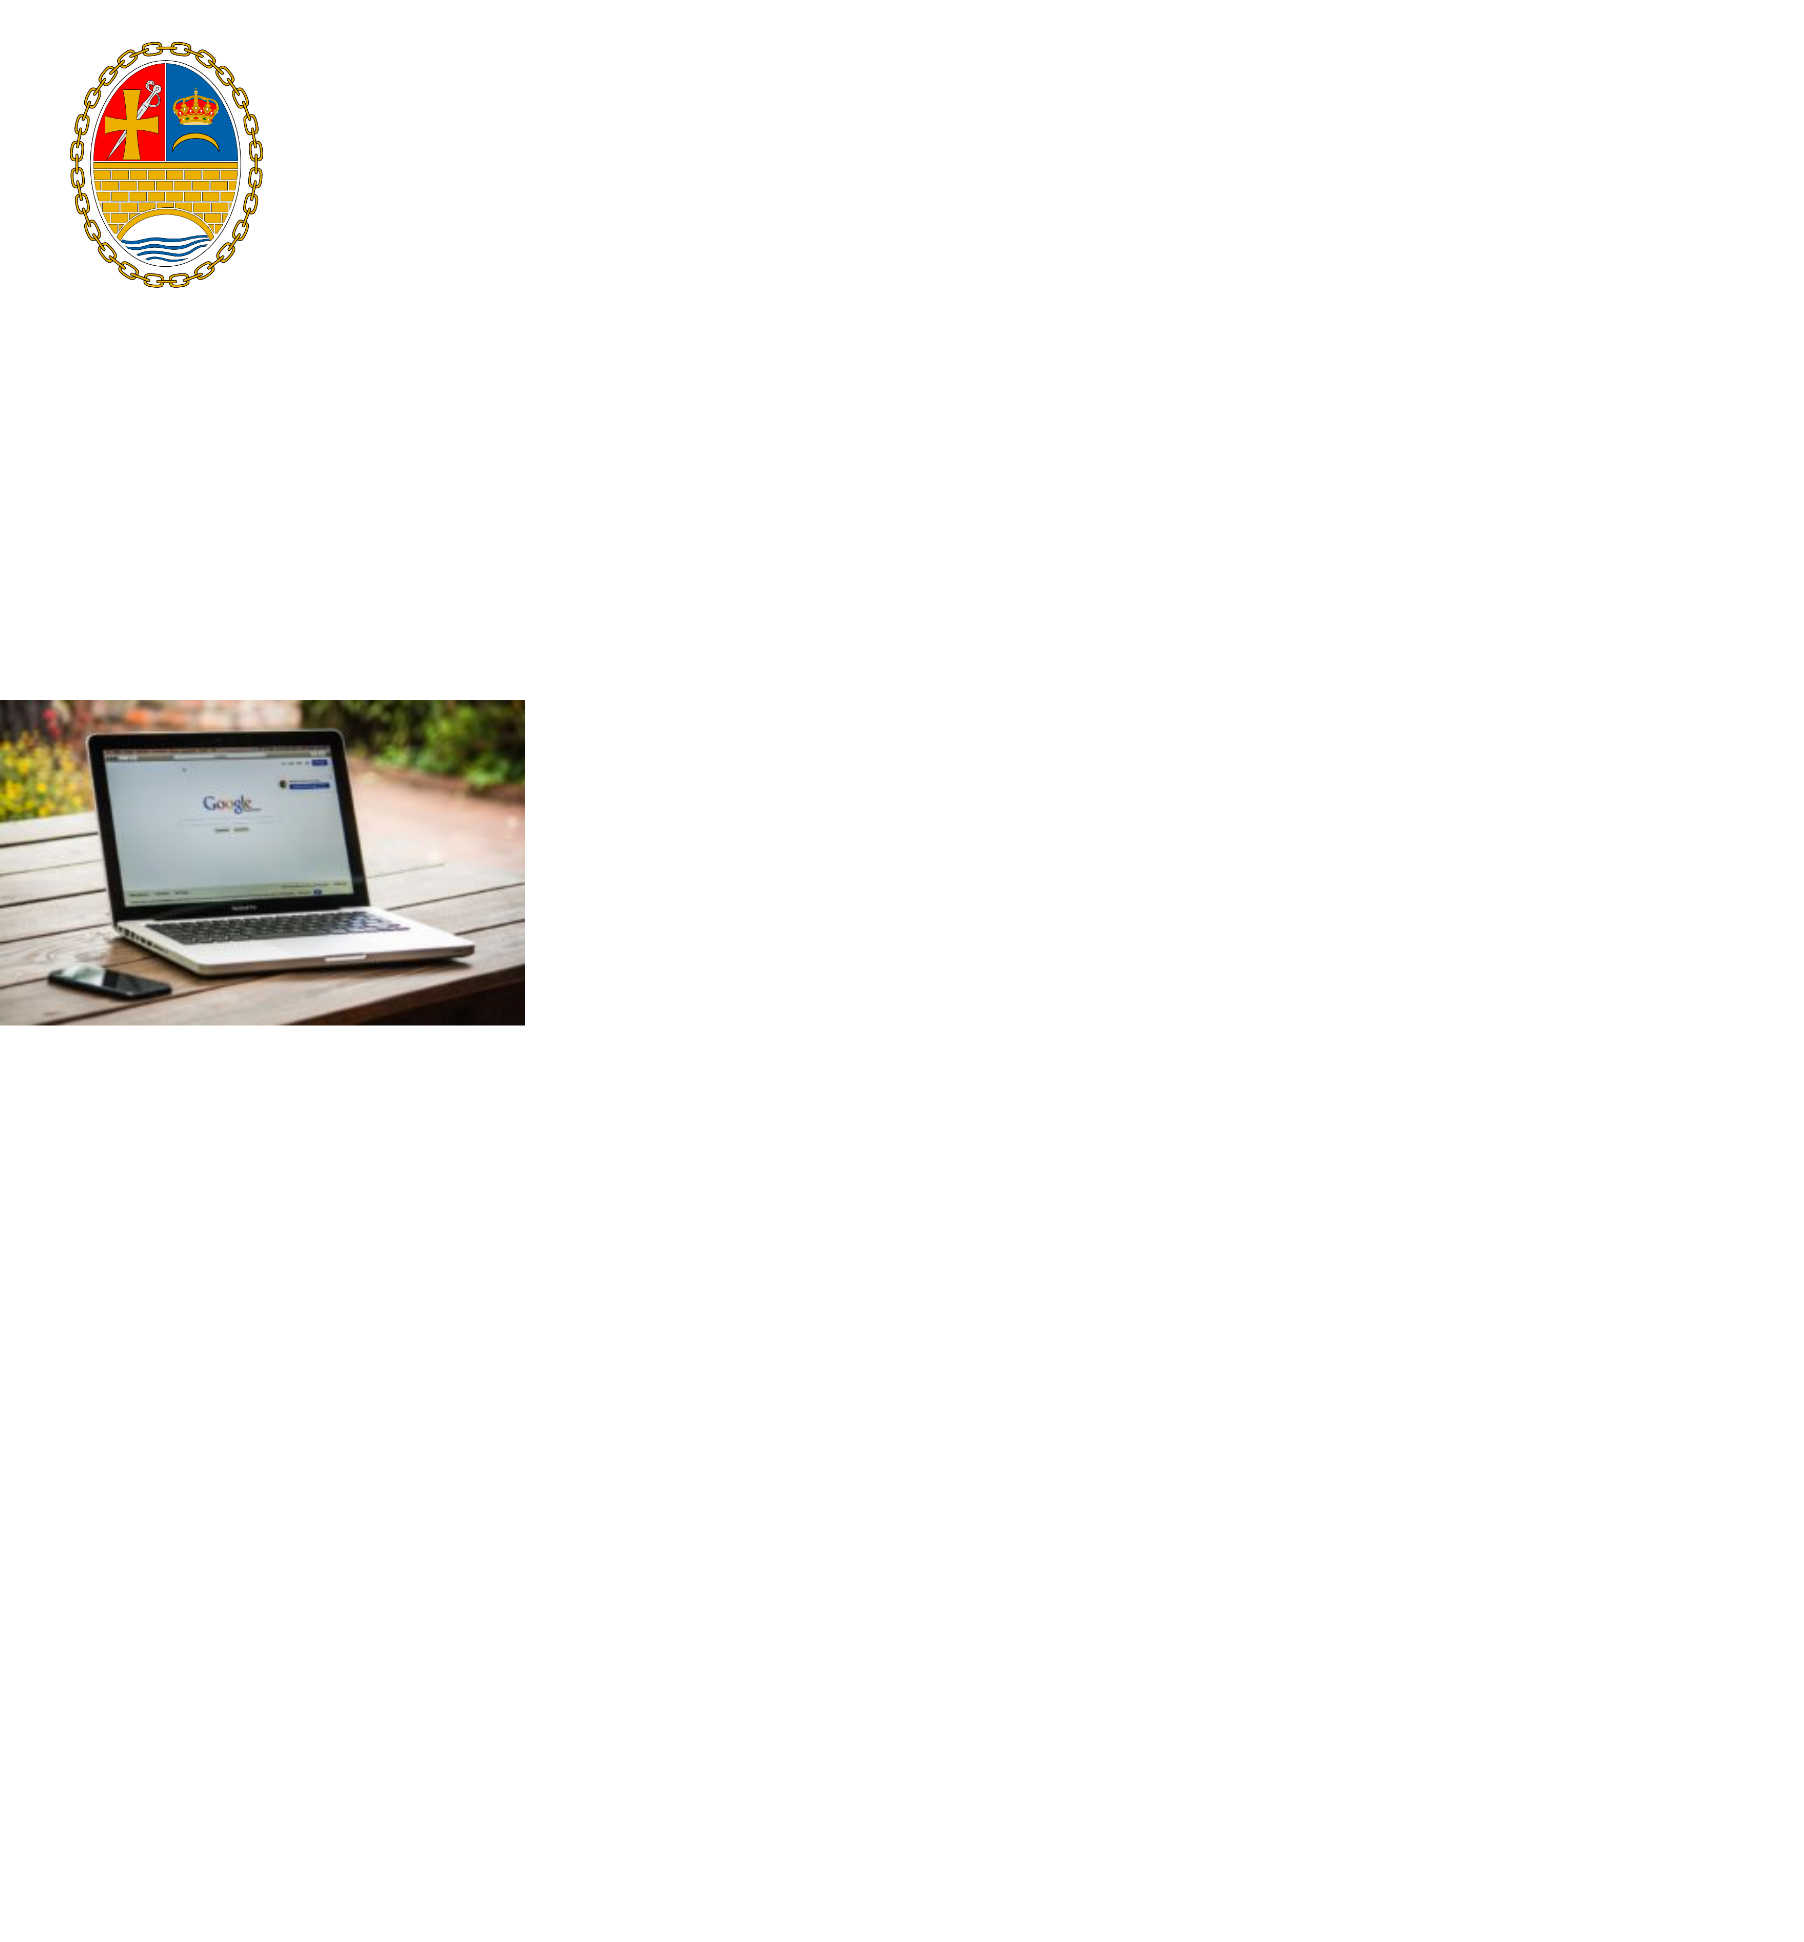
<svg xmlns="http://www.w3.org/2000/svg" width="1804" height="1942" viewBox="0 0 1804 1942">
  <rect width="100%" height="100%" fill="#ffffff"/>
  <image x="70" y="41" width="193" height="247" href="img1.png"/>
  <image x="0" y="700" width="525" height="326" href="img2.png"/>
</svg>
